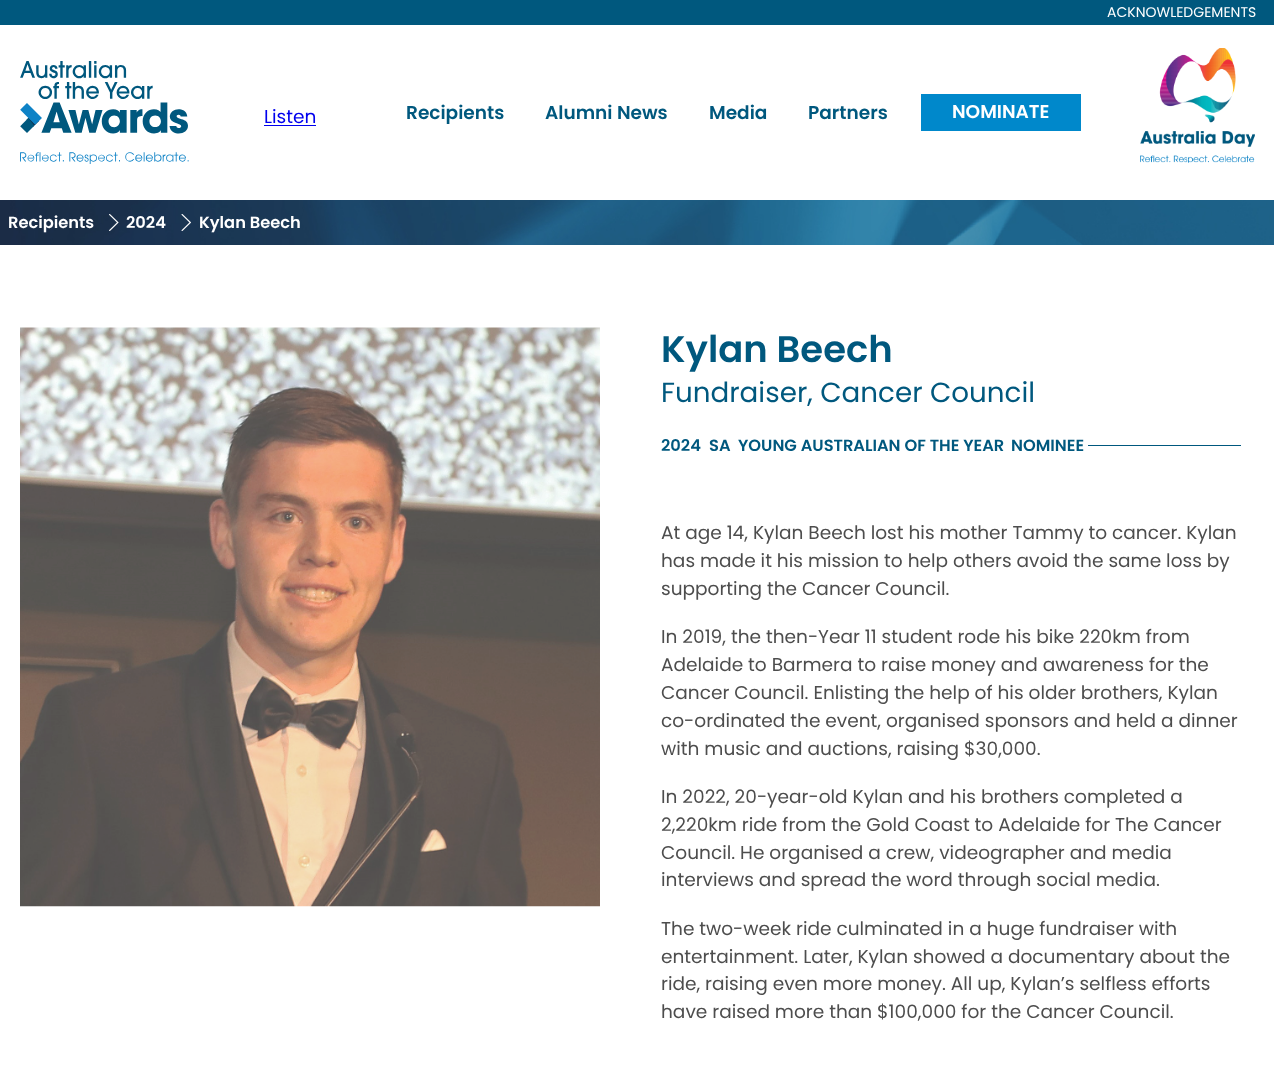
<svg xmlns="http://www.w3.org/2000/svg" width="1274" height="1084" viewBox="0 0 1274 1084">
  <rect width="100%" height="100%" fill="#ffffff"/>
  <rect x="0" y="0" width="1274" height="25" fill="#00587e"/>
  <text x="1107" y="17" font-family="Poppins" font-size="14" fill="#ffffff">ACKNOWLEDGEMENTS</text>
  <image x="20" y="61" width="169" height="103" href="img1.png"/>
  <text x="264" y="123" font-family="Poppins" font-size="18.55" fill="#0000ee">Listen</text>
  <rect x="264" y="125" width="52" height="1" fill="#0000ee"/>
  <text x="406" y="119" font-family="Poppins" font-size="18.55" font-weight="600" fill="#00587e">Recipients</text>
  <text x="545" y="119" font-family="Poppins" font-size="18.55" font-weight="600" fill="#00587e">Alumni News</text>
  <text x="709" y="119" font-family="Poppins" font-size="18.55" font-weight="600" fill="#00587e">Media</text>
  <text x="808" y="119" font-family="Poppins" font-size="18.55" font-weight="600" fill="#00587e">Partners</text>
  <rect x="921" y="94" width="160" height="37" fill="#0088cb"/>
  <text x="952" y="118" font-family="Poppins" font-size="18.55" font-weight="600" fill="#ffffff">NOMINATE</text>
  <image x="1140" y="48" width="115" height="115" href="img2.png"/>
  <image x="0" y="200" width="1274" height="45" href="img3.png"/>
  <text x="8" y="228" font-family="Poppins" font-size="16.25" font-weight="600" fill="#ffffff">Recipients</text>
  <image x="109" y="214" width="10" height="17" href="img4.png"/>
  <text x="126" y="228" font-family="Poppins" font-size="16.25" font-weight="600" fill="#ffffff">2024</text>
  <image x="181" y="214" width="10" height="17" href="img5.png"/>
  <text x="199" y="228" font-family="Poppins" font-size="16.25" font-weight="600" fill="#ffffff">Kylan Beech</text>
  <image x="20" y="327" width="580" height="580" href="img6.png"/>
  <text x="661" y="362" font-family="Poppins" font-size="37" font-weight="600" fill="#00587e">Kylan Beech</text>
  <text x="661" y="402" font-family="Poppins" font-size="27.75" fill="#00587e">Fundraiser, Cancer Council</text>
  <text x="661" y="451" font-family="Poppins" font-size="16.25" font-weight="600" fill="#00587e">2024</text>
  <text x="709" y="451" font-family="Poppins" font-size="16.25" font-weight="600" fill="#00587e">SA</text>
  <text x="738" y="451" font-family="Poppins" font-size="16.25" font-weight="600" fill="#00587e">YOUNG AUSTRALIAN OF THE YEAR</text>
  <text x="1011" y="451" font-family="Poppins" font-size="16.25" font-weight="600" fill="#00587e">NOMINEE</text>
  <rect x="1088" y="445" width="153" height="1" fill="#00587e"/>
  <text x="661" y="539" font-family="Poppins" font-size="18.55" fill="#4d4d4d">At age 14, Kylan Beech lost his mother Tammy to cancer. Kylan</text>
  <text x="661" y="567" font-family="Poppins" font-size="18.55" fill="#4d4d4d">has made it his mission to help others avoid the same loss by</text>
  <text x="661" y="595" font-family="Poppins" font-size="18.55" fill="#4d4d4d">supporting the Cancer Council.</text>
  <text x="661" y="643" font-family="Poppins" font-size="18.55" fill="#4d4d4d">In 2019, the then-Year 11 student rode his bike 220km from</text>
  <text x="661" y="671" font-family="Poppins" font-size="18.55" fill="#4d4d4d">Adelaide to Barmera to raise money and awareness for the</text>
  <text x="661" y="699" font-family="Poppins" font-size="18.55" fill="#4d4d4d">Cancer Council. Enlisting the help of his older brothers, Kylan</text>
  <text x="661" y="727" font-family="Poppins" font-size="18.55" fill="#4d4d4d">co-ordinated the event, organised sponsors and held a dinner</text>
  <text x="661" y="755" font-family="Poppins" font-size="18.55" fill="#4d4d4d">with music and auctions, raising $30,000.</text>
  <text x="661" y="803" font-family="Poppins" font-size="18.55" fill="#4d4d4d">In 2022, 20-year-old Kylan and his brothers completed a</text>
  <text x="661" y="831" font-family="Poppins" font-size="18.55" fill="#4d4d4d">2,220km ride from the Gold Coast to Adelaide for The Cancer</text>
  <text x="661" y="859" font-family="Poppins" font-size="18.55" fill="#4d4d4d">Council. He organised a crew, videographer and media</text>
  <text x="661" y="886" font-family="Poppins" font-size="18.55" fill="#4d4d4d">interviews and spread the word through social media.</text>
  <text x="661" y="935" font-family="Poppins" font-size="18.55" fill="#4d4d4d">The two-week ride culminated in a huge fundraiser with</text>
  <text x="661" y="963" font-family="Poppins" font-size="18.55" fill="#4d4d4d">entertainment. Later, Kylan showed a documentary about the</text>
  <text x="661" y="990" font-family="Poppins" font-size="18.55" fill="#4d4d4d">ride, raising even more money. All up, Kylan’s selfless efforts</text>
  <text x="661" y="1018" font-family="Poppins" font-size="18.55" fill="#4d4d4d">have raised more than $100,000 for the Cancer Council.</text>
</svg>
